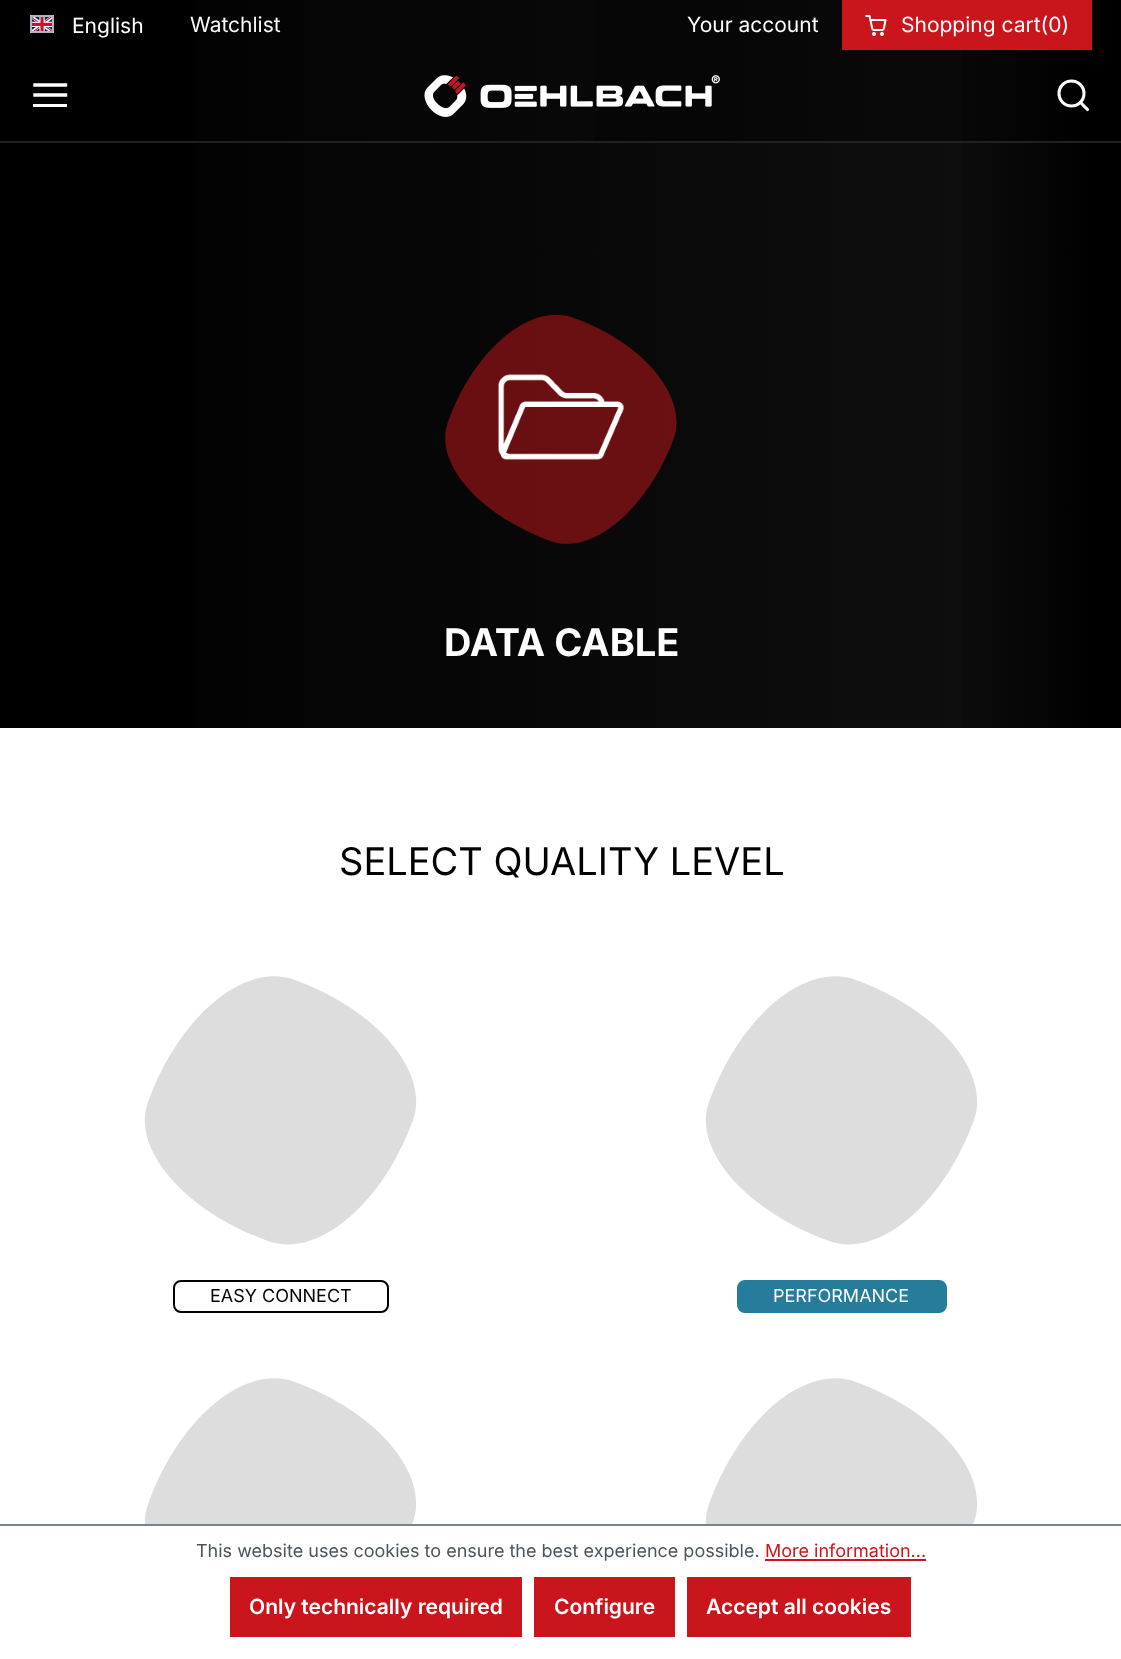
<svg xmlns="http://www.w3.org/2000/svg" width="1121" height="1659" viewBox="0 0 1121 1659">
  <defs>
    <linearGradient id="g1" gradientUnits="userSpaceOnUse" x1="30" y1="364" x2="1092" y2="364"><stop offset="0" stop-color="#000000"/><stop offset="1" stop-color="#101010"/></linearGradient>
    <linearGradient id="g2" gradientUnits="userSpaceOnUse" x1="1092" y1="364" x2="30" y2="364"><stop offset="0" stop-color="#000000"/><stop offset="0.15" stop-color="#000000" stop-opacity="0"/></linearGradient>
  </defs>
  <rect width="100%" height="100%" fill="#ffffff"/>
  <rect x="0" y="0" width="1121" height="728" fill="#000000"/>
  <rect x="196" y="0" width="895" height="728" fill="url(#g1)"/>
  <rect x="962" y="50" width="129" height="678" fill="url(#g2)"/>
  <rect x="594" y="0" width="497" height="141" fill="#000000" fill-opacity="0.3"/>
  <rect x="0" y="141" width="1121" height="2" fill="#212121"/>
  <image x="32" y="17" width="20" height="14" href="img1.png"/>
  <rect x="31" y="16" width="22" height="16" fill="none" stroke="#adb5bd" stroke-width="2"/>
  <text x="72" y="33" font-family="Inter" font-size="21" fill="#ffffff">English</text>
  <text x="190" y="32" font-family="Inter" font-size="21" fill="#f9f9f9">Watchlist</text>
  <text x="687" y="32" font-family="Inter" font-size="21" fill="#ffffff">Your account</text>
  <rect x="842" y="0" width="250" height="50" fill="#cb151c"/>
  <image x="865" y="15" width="22" height="21" href="img2.png"/>
  <text x="901" y="32" font-family="Inter" font-size="21" fill="#ffffff">Shopping cart(0)</text>
  <path d="M35 95H65.5M35 85H65.5" fill="none" stroke="#ffffff" stroke-width="3.4" stroke-linecap="square" stroke-linejoin="round"/>
  <rect x="33" y="104" width="34" height="3" fill="#ffffff"/>
  <image x="424" y="75" width="296" height="42" href="img3.png"/>
  <circle cx="1071.5" cy="93.5" r="12.5" fill="none" stroke="#ffffff" stroke-width="3.1"/>
  <path d="M1087.5 109.5L1080.5 102.5" fill="none" stroke="#ffffff" stroke-width="3.1" stroke-linecap="round" stroke-linejoin="round"/>
  <path d="M574 318C644 343 688 397 674 438C647 510 592 556 550 541C479 515 433 462 448 422C474 349 531 302 574 318Z" fill="#cb151c" fill-opacity="0.5"/>
  <image x="498" y="374" width="126" height="86" href="img4.png"/>
  <text x="444" y="656" font-family="Inter" font-size="38" font-weight="bold" fill="#ffffff">DATA CABLE</text>
  <text x="339" y="875" font-family="Inter" font-size="38" fill="#000000">SELECT QUALITY LEVEL</text>
  <path d="M295 980C377 1010 430 1072 413 1120C382 1205 317 1259 268 1241C185 1211 131 1149 148 1102C179 1016 245 961 295 980Z" fill="#dddddd"/>
  <rect x="174" y="1281" width="214" height="31" rx="7" fill="none" stroke="#000000" stroke-width="2"/>
  <text x="210" y="1302" font-family="Inter" font-size="18" fill="#000000">EASY CONNECT</text>
  <path d="M856 980C938 1010 991 1072 974 1120C943 1205 878 1259 829 1241C746 1211 692 1149 709 1102C740 1016 806 961 856 980Z" fill="#dddddd"/>
  <rect x="738" y="1281" width="208" height="31" rx="7" fill="#257d9b" stroke="#257d9b" stroke-width="2"/>
  <text x="773" y="1302" font-family="Inter" font-size="18" fill="#ffffff">PERFORMANCE</text>
  <path d="M295 1382C377 1412 430 1474 413 1522C382 1607 317 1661 268 1643C185 1613 131 1551 148 1504C179 1418 245 1363 295 1382Z" fill="#dddddd"/>
  <path d="M856 1382C938 1412 991 1474 974 1522C943 1607 878 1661 829 1643C746 1613 692 1551 709 1504C740 1418 806 1363 856 1382Z" fill="#dddddd"/>
  <rect x="145" y="1526" width="828" height="121" fill="#ffffff"/>
  <rect x="0" y="1524" width="1121" height="2" fill="#798490"/>
  <text x="196" y="1557" font-family="Inter" font-size="18" fill="#4a545b">This website uses cookies to ensure the best experience possible.</text>
  <text x="765" y="1557" font-family="Inter" font-size="18" fill="#cb151c">More information...</text>
  <rect x="765" y="1559" width="161" height="2" fill="#cb151c"/>
  <rect x="230" y="1577" width="292" height="60" fill="#cb151c"/>
  <text x="249" y="1614" font-family="Inter" font-size="21" font-weight="600" fill="#ffffff">Only technically required</text>
  <rect x="534" y="1577" width="141" height="60" fill="#cb151c"/>
  <text x="554" y="1614" font-family="Inter" font-size="21" font-weight="600" fill="#ffffff">Configure</text>
  <rect x="687" y="1577" width="224" height="60" fill="#cb151c"/>
  <text x="706" y="1614" font-family="Inter" font-size="21" font-weight="600" fill="#ffffff">Accept all cookies</text>
</svg>
